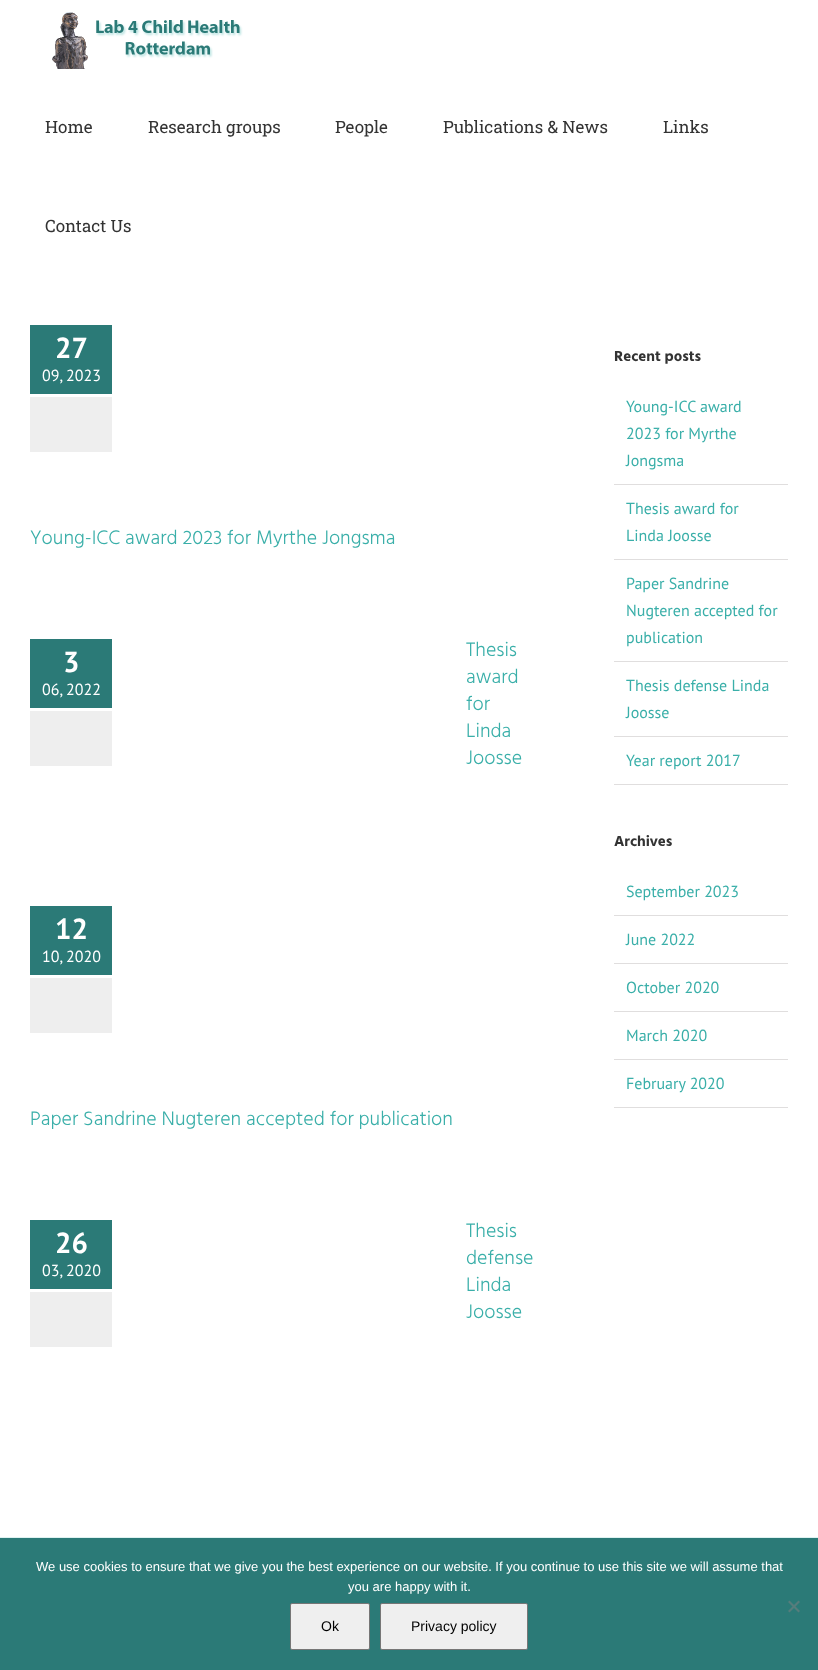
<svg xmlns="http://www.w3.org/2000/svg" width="818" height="1670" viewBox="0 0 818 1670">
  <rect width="100%" height="100%" fill="#ffffff"/>
  <image x="52" y="12" width="191" height="57" href="img1.png"/>
  <text x="45" y="133" font-family="Roboto Slab" font-size="17" fill="#333333">Home</text>
  <text x="148" y="133" font-family="Roboto Slab" font-size="17" fill="#333333">Research groups</text>
  <text x="335" y="133" font-family="Roboto Slab" font-size="17" fill="#333333">People</text>
  <text x="443" y="133" font-family="Roboto Slab" font-size="17" fill="#333333">Publications &amp; News</text>
  <text x="663" y="133" font-family="Roboto Slab" font-size="17" fill="#333333">Links</text>
  <text x="45" y="232" font-family="Roboto Slab" font-size="17" fill="#333333">Contact Us</text>
  <rect x="30" y="325" width="82" height="69" fill="#2b7a77"/>
  <text x="55" y="358" font-family="PT Sans" font-size="29" font-weight="bold" fill="#ffffff">27</text>
  <text x="42" y="381" font-family="PT Sans" font-size="16" fill="#ffffff">09, 2023</text>
  <rect x="30" y="397" width="82" height="55" fill="#eeeeee"/>
  <text x="30" y="544" font-family="Hind Guntur" font-size="20" font-weight="300" fill="#3aafa9">Young-ICC award 2023 for Myrthe Jongsma</text>
  <rect x="30" y="639" width="82" height="69" fill="#2b7a77"/>
  <text x="63" y="672" font-family="PT Sans" font-size="29" font-weight="bold" fill="#ffffff">3</text>
  <text x="42" y="695" font-family="PT Sans" font-size="16" fill="#ffffff">06, 2022</text>
  <rect x="30" y="711" width="82" height="55" fill="#eeeeee"/>
  <text x="466" y="656" font-family="Hind Guntur" font-size="20" font-weight="300" fill="#3aafa9">Thesis</text>
  <text x="466" y="683" font-family="Hind Guntur" font-size="20" font-weight="300" fill="#3aafa9">award</text>
  <text x="466" y="710" font-family="Hind Guntur" font-size="20" font-weight="300" fill="#3aafa9">for</text>
  <text x="466" y="737" font-family="Hind Guntur" font-size="20" font-weight="300" fill="#3aafa9">Linda</text>
  <text x="466" y="764" font-family="Hind Guntur" font-size="20" font-weight="300" fill="#3aafa9">Joosse</text>
  <rect x="30" y="906" width="82" height="69" fill="#2b7a77"/>
  <text x="55" y="939" font-family="PT Sans" font-size="29" font-weight="bold" fill="#ffffff">12</text>
  <text x="42" y="962" font-family="PT Sans" font-size="16" fill="#ffffff">10, 2020</text>
  <rect x="30" y="978" width="82" height="55" fill="#eeeeee"/>
  <text x="30" y="1125" font-family="Hind Guntur" font-size="20" font-weight="300" fill="#3aafa9">Paper Sandrine Nugteren accepted for publication</text>
  <rect x="30" y="1220" width="82" height="69" fill="#2b7a77"/>
  <text x="55" y="1253" font-family="PT Sans" font-size="29" font-weight="bold" fill="#ffffff">26</text>
  <text x="42" y="1276" font-family="PT Sans" font-size="16" fill="#ffffff">03, 2020</text>
  <rect x="30" y="1292" width="82" height="55" fill="#eeeeee"/>
  <text x="466" y="1237" font-family="Hind Guntur" font-size="20" font-weight="300" fill="#3aafa9">Thesis</text>
  <text x="466" y="1264" font-family="Hind Guntur" font-size="20" font-weight="300" fill="#3aafa9">defense</text>
  <text x="466" y="1291" font-family="Hind Guntur" font-size="20" font-weight="300" fill="#3aafa9">Linda</text>
  <text x="466" y="1318" font-family="Hind Guntur" font-size="20" font-weight="300" fill="#3aafa9">Joosse</text>
  <text x="614" y="361" font-family="Hind Guntur" font-size="15" font-weight="bold" fill="#333333">Recent posts</text>
  <rect x="614" y="484" width="174" height="1" fill="#e0dede"/>
  <text x="626" y="412" font-family="PT Sans" font-size="16" fill="#3aafa9">Young-ICC award</text>
  <text x="626" y="439" font-family="PT Sans" font-size="16" fill="#3aafa9">2023 for Myrthe</text>
  <text x="626" y="466" font-family="PT Sans" font-size="16" fill="#3aafa9">Jongsma</text>
  <rect x="614" y="559" width="174" height="1" fill="#e0dede"/>
  <text x="626" y="514" font-family="PT Sans" font-size="16" fill="#3aafa9">Thesis award for</text>
  <text x="626" y="541" font-family="PT Sans" font-size="16" fill="#3aafa9">Linda Joosse</text>
  <rect x="614" y="661" width="174" height="1" fill="#e0dede"/>
  <text x="626" y="589" font-family="PT Sans" font-size="16" fill="#3aafa9">Paper Sandrine</text>
  <text x="626" y="616" font-family="PT Sans" font-size="16" fill="#3aafa9">Nugteren accepted for</text>
  <text x="626" y="643" font-family="PT Sans" font-size="16" fill="#3aafa9">publication</text>
  <rect x="614" y="736" width="174" height="1" fill="#e0dede"/>
  <text x="626" y="691" font-family="PT Sans" font-size="16" fill="#3aafa9">Thesis defense Linda</text>
  <text x="626" y="718" font-family="PT Sans" font-size="16" fill="#3aafa9">Joosse</text>
  <rect x="614" y="784" width="174" height="1" fill="#e0dede"/>
  <text x="626" y="766" font-family="PT Sans" font-size="16" fill="#3aafa9">Year report 2017</text>
  <text x="614" y="846" font-family="Hind Guntur" font-size="15" font-weight="bold" fill="#333333">Archives</text>
  <rect x="614" y="915" width="174" height="1" fill="#e0dede"/>
  <text x="626" y="897" font-family="PT Sans" font-size="16" fill="#3aafa9">September 2023</text>
  <rect x="614" y="963" width="174" height="1" fill="#e0dede"/>
  <text x="626" y="945" font-family="PT Sans" font-size="16" fill="#3aafa9">June 2022</text>
  <rect x="614" y="1011" width="174" height="1" fill="#e0dede"/>
  <text x="626" y="993" font-family="PT Sans" font-size="16" fill="#3aafa9">October 2020</text>
  <rect x="614" y="1059" width="174" height="1" fill="#e0dede"/>
  <text x="626" y="1041" font-family="PT Sans" font-size="16" fill="#3aafa9">March 2020</text>
  <rect x="614" y="1107" width="174" height="1" fill="#e0dede"/>
  <text x="626" y="1089" font-family="PT Sans" font-size="16" fill="#3aafa9">February 2020</text>
  <rect x="0" y="1538" width="818" height="132" fill="#2b7a77"/>
  <rect x="0" y="1537" width="818" height="1" fill="#def2f1"/>
  <text x="36" y="1571" font-family="Liberation Sans" font-size="13" fill="#ffffff">We use cookies to ensure that we give you the best experience on our website. If you continue to use this site we will assume that</text>
  <text x="348" y="1591" font-family="Liberation Sans" font-size="13" fill="#ffffff">you are happy with it.</text>
  <path d="M798.5 1600.5L800 1602L789.5 1612.5L788 1611Z" fill="#567d7c"/>
  <path d="M788 1602L789.5 1600.5L800 1611L798.5 1612.5Z" fill="#567d7c"/>
  <rect x="290.5" y="1603.5" width="79" height="46" rx="1.5" fill="#efefef" stroke="#767676"/>
  <text x="321" y="1631" font-family="Liberation Sans" font-size="14" fill="#000000">Ok</text>
  <rect x="380.5" y="1603.5" width="147" height="46" rx="1.5" fill="#efefef" stroke="#767676"/>
  <text x="411" y="1631" font-family="Liberation Sans" font-size="14" fill="#000000">Privacy policy</text>
</svg>
